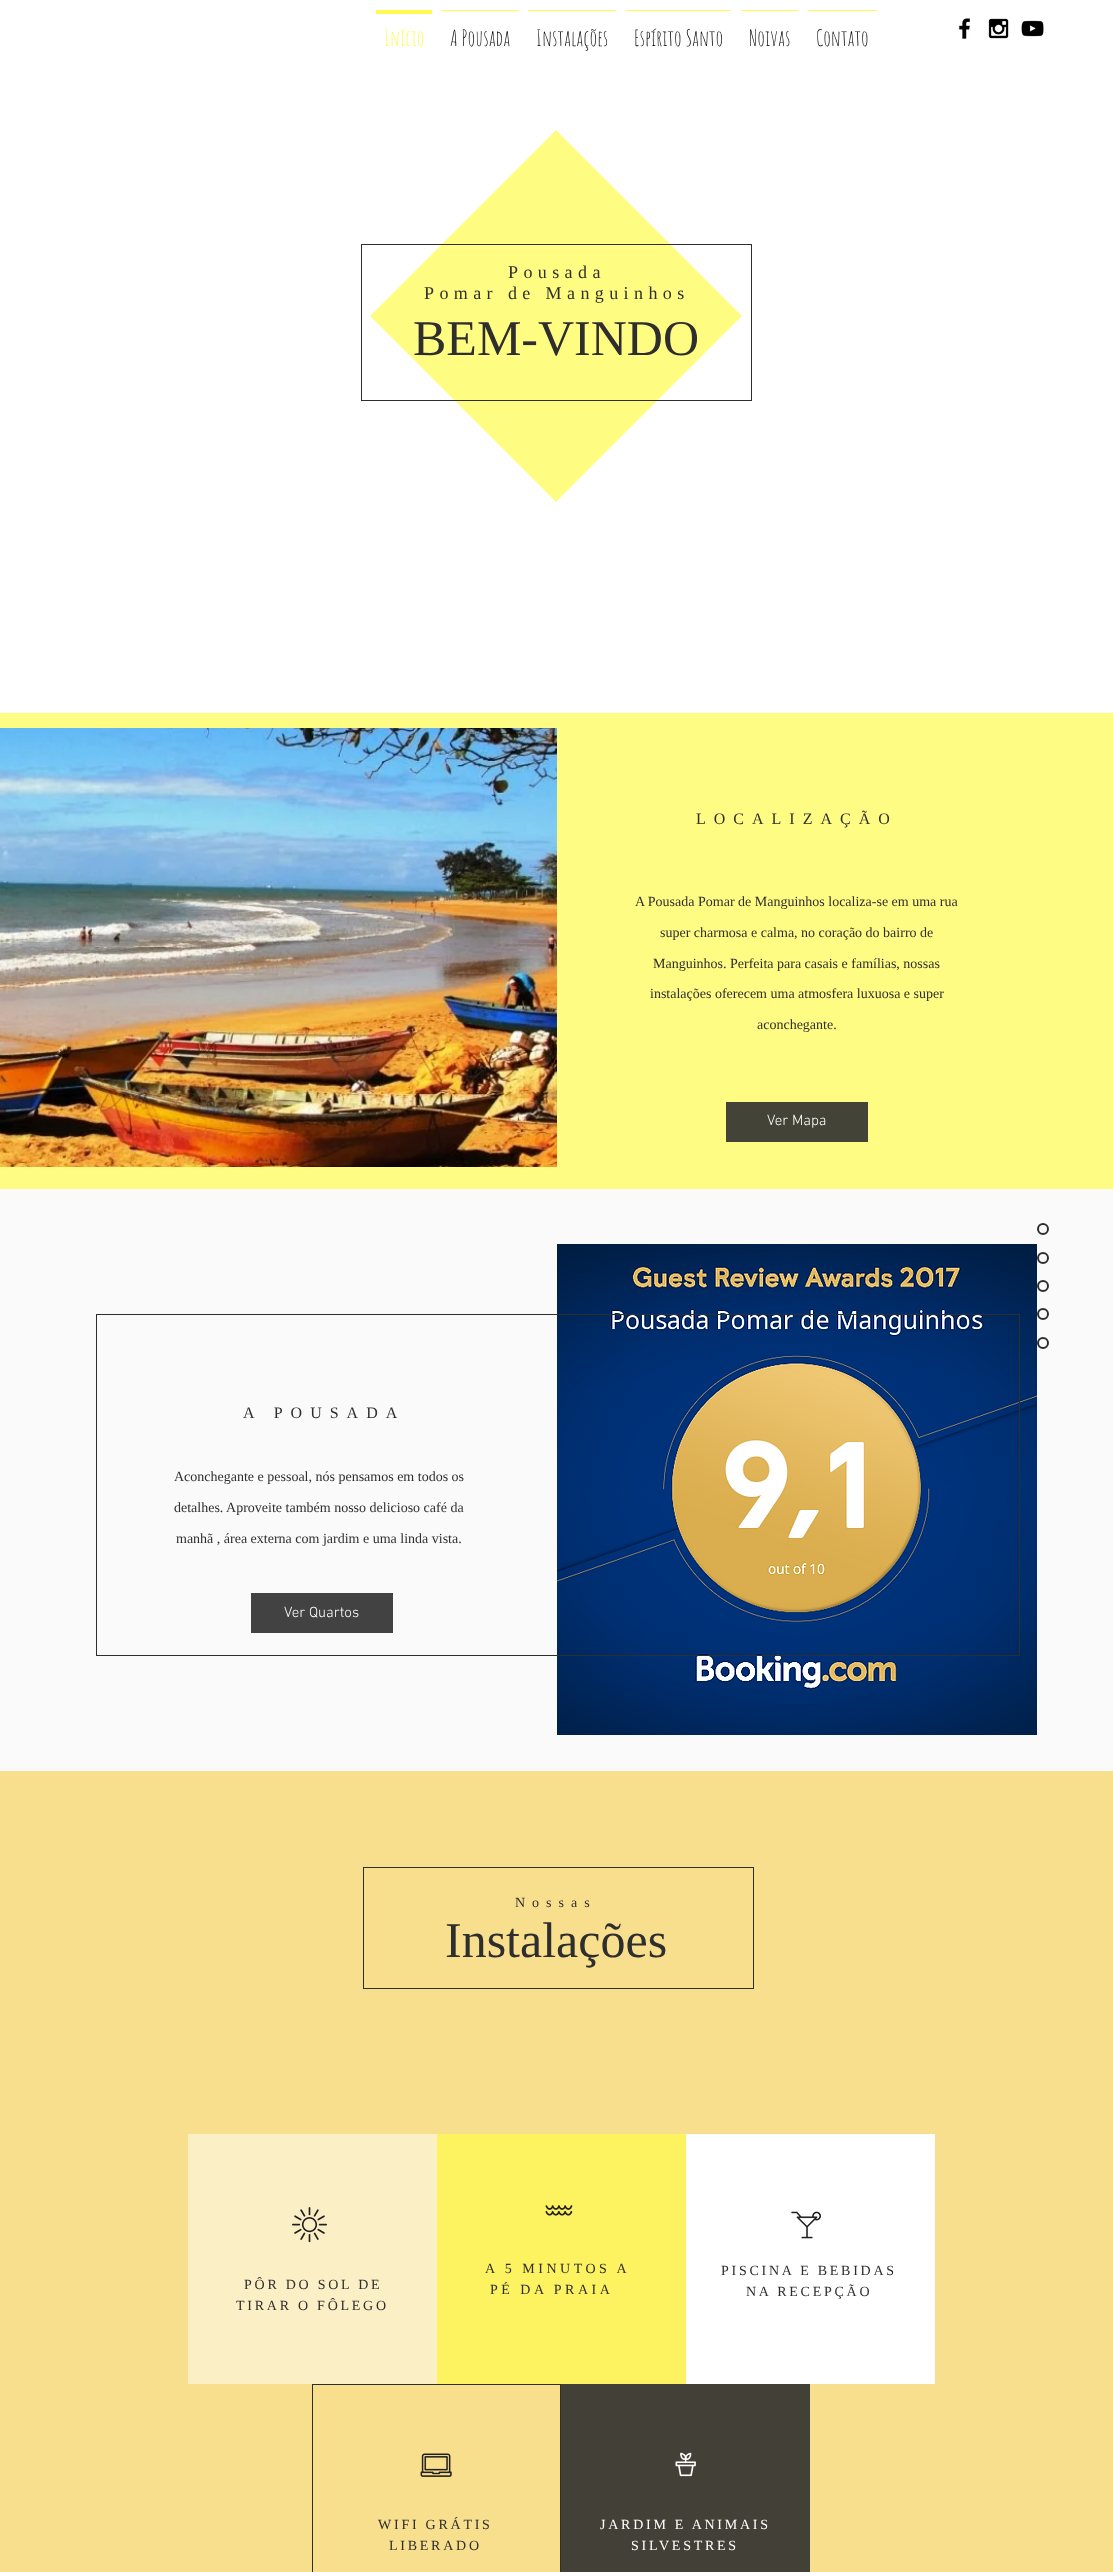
<svg xmlns="http://www.w3.org/2000/svg" width="1113" height="2572" viewBox="0 0 1113 2572">
  <rect width="100%" height="100%" fill="#ffffff"/>
  <rect x="376" y="10" width="56" height="4" fill="#fffa4d"/>
  <text x="384" y="46" font-family="Amatic SC" font-size="22" fill="#fffa4d">Início</text>
  <rect x="442" y="10" width="76" height="1" fill="#fffa4d"/>
  <text x="450" y="46" font-family="Amatic SC" font-size="22" fill="#000000">A Pousada</text>
  <rect x="528" y="10" width="88" height="1" fill="#fffa4d"/>
  <text x="536" y="46" font-family="Amatic SC" font-size="22" fill="#000000">Instalações</text>
  <rect x="626" y="10" width="105" height="1" fill="#fffa4d"/>
  <text x="634" y="46" font-family="Amatic SC" font-size="22" fill="#000000">Espírito Santo</text>
  <rect x="741" y="10" width="57" height="1" fill="#fffa4d"/>
  <text x="749" y="46" font-family="Amatic SC" font-size="22" fill="#000000">Noivas</text>
  <rect x="808" y="10" width="69" height="1" fill="#fffa4d"/>
  <text x="816" y="46" font-family="Amatic SC" font-size="22" fill="#000000">Contato</text>
  <image x="959" y="18" width="11" height="21" href="img1.png"/>
  <image x="988" y="18" width="21" height="21" href="img2.png"/>
  <image x="1021" y="20" width="23" height="17" href="img3.png"/>
  <path d="M742 316L556 502L370 316L556 130Z" fill="#fffc82"/>
  <rect x="361.5" y="244.5" width="390" height="156" fill="none" stroke="#2f2e2e"/>
  <text x="508" y="278" font-family="Liberation Serif" font-size="18" letter-spacing="5.4" fill="#2f2e2e">Pousada</text>
  <text x="424" y="299" font-family="Liberation Serif" font-size="18" letter-spacing="5.4" fill="#2f2e2e">Pomar de Manguinhos</text>
  <text x="413" y="355" font-family="Liberation Serif" font-size="50" fill="#2f2e2e">BEM-VINDO</text>
  <rect x="0" y="713" width="1113" height="476" fill="#fffc83"/>
  <image x="0" y="728" width="557" height="439" href="img4.png"/>
  <text x="696" y="824" font-family="Liberation Serif" font-size="16" letter-spacing="8" fill="#2f2e2e">LOCALIZAÇÃO</text>
  <text x="635" y="906" font-family="Liberation Serif" font-size="14" fill="#2f2e2e">A Pousada Pomar de Manguinhos localiza-se em uma rua</text>
  <text x="660" y="937" font-family="Liberation Serif" font-size="14" fill="#2f2e2e">super charmosa e calma, no coração do bairro de</text>
  <text x="653" y="968" font-family="Liberation Serif" font-size="14" fill="#2f2e2e">Manguinhos. Perfeita para casais e famílias, nossas</text>
  <text x="650" y="998" font-family="Liberation Serif" font-size="14" fill="#2f2e2e">instalações oferecem uma atmosfera luxuosa e super</text>
  <text x="757" y="1029" font-family="Liberation Serif" font-size="14" fill="#2f2e2e">aconchegante.</text>
  <rect x="726" y="1102" width="142" height="40" fill="#444337"/>
  <text x="767" y="1125" font-family="'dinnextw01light'" font-size="15" font-weight="300" fill="#ffffff">Ver Mapa</text>
  <rect x="0" y="1189" width="1113" height="582" fill="#fafafa"/>
  <image x="557" y="1244" width="480" height="491" href="img5.png"/>
  <rect x="96.5" y="1314.5" width="923" height="341" fill="none" stroke="#2f2e2e"/>
  <text x="243" y="1418" font-family="Liberation Serif" font-size="16" letter-spacing="8" fill="#2f2e2e">A POUSADA</text>
  <text x="174" y="1481" font-family="Liberation Serif" font-size="14" fill="#2f2e2e">Aconchegante e pessoal, nós pensamos em todos os</text>
  <text x="174" y="1512" font-family="Liberation Serif" font-size="14" fill="#2f2e2e">detalhes. Aproveite também nosso delicioso café da</text>
  <text x="176" y="1543" font-family="Liberation Serif" font-size="14" fill="#2f2e2e">manhã , área externa com jardim e uma linda vista.</text>
  <rect x="251" y="1593" width="142" height="40" fill="#434242"/>
  <text x="284" y="1617" font-family="'dinnextw01light'" font-size="15" font-weight="300" fill="#ffffff">Ver Quartos</text>
  <rect x="0" y="1771" width="1113" height="801" fill="#f7df8d"/>
  <rect x="363.5" y="1867.5" width="390" height="121" fill="none" stroke="#2f2e2e"/>
  <text x="515" y="1907" font-family="Liberation Serif" font-size="14" letter-spacing="7" fill="#2f2e2e">Nossas</text>
  <text x="445" y="1957" font-family="Liberation Serif" font-size="50" fill="#2f2e2e">Instalações</text>
  <rect x="188" y="2134" width="249" height="250" fill="#fbefc6"/>
  <image x="292" y="2207" width="35" height="36" href="img6.png"/>
  <rect x="686" y="2134" width="249" height="250" fill="#ffffff"/>
  <image x="791" y="2211" width="30" height="28" href="img7.png"/>
  <text x="244" y="2289" font-family="Liberation Serif" font-size="14" letter-spacing="2.75" fill="#2f2e2e">PÔR DO SOL DE</text>
  <text x="236" y="2310" font-family="Liberation Serif" font-size="14" letter-spacing="2.75" fill="#2f2e2e">TIRAR O FÔLEGO</text>
  <rect x="437" y="2134" width="249" height="250" fill="#fdf260"/>
  <image x="545" y="2205" width="28" height="11" href="img8.png"/>
  <text x="485" y="2273" font-family="Liberation Serif" font-size="14" letter-spacing="3.5" fill="#2f2e2e">A 5 MINUTOS A</text>
  <text x="490" y="2294" font-family="Liberation Serif" font-size="14" letter-spacing="3.5" fill="#2f2e2e">PÉ DA PRAIA</text>
  <text x="721" y="2275" font-family="Liberation Serif" font-size="14" letter-spacing="2.75" fill="#2f2e2e">PISCINA E BEBIDAS</text>
  <text x="746" y="2296" font-family="Liberation Serif" font-size="14" letter-spacing="2.75" fill="#2f2e2e">NA RECEPÇÃO</text>
  <rect x="312.5" y="2384.5" width="248" height="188" fill="none" stroke="#2f2e2e"/>
  <rect x="561" y="2384" width="249" height="188" fill="#434038"/>
  <image x="420" y="2453" width="32" height="24" href="img9.png"/>
  <image x="675" y="2452" width="21" height="25" href="img10.png"/>
  <text x="378" y="2529" font-family="Liberation Serif" font-size="14" letter-spacing="2.75" fill="#2f2e2e">WIFI GRÁTIS</text>
  <text x="389" y="2550" font-family="Liberation Serif" font-size="14" letter-spacing="2.75" fill="#2f2e2e">LIBERADO</text>
  <text x="600" y="2529" font-family="Liberation Serif" font-size="14" letter-spacing="2.75" fill="#ffffff">JARDIM E ANIMAIS</text>
  <text x="631" y="2550" font-family="Liberation Serif" font-size="14" letter-spacing="2.75" fill="#ffffff">SILVESTRES</text>
  <circle cx="1043" cy="1229" r="5" fill="none" stroke="#2f2e2e" stroke-width="2"/>
  <circle cx="1043" cy="1258" r="5" fill="none" stroke="#2f2e2e" stroke-width="2"/>
  <circle cx="1043" cy="1286" r="5" fill="none" stroke="#2f2e2e" stroke-width="2"/>
  <circle cx="1043" cy="1314" r="5" fill="none" stroke="#2f2e2e" stroke-width="2"/>
  <circle cx="1043" cy="1343" r="5" fill="none" stroke="#2f2e2e" stroke-width="2"/>
</svg>
